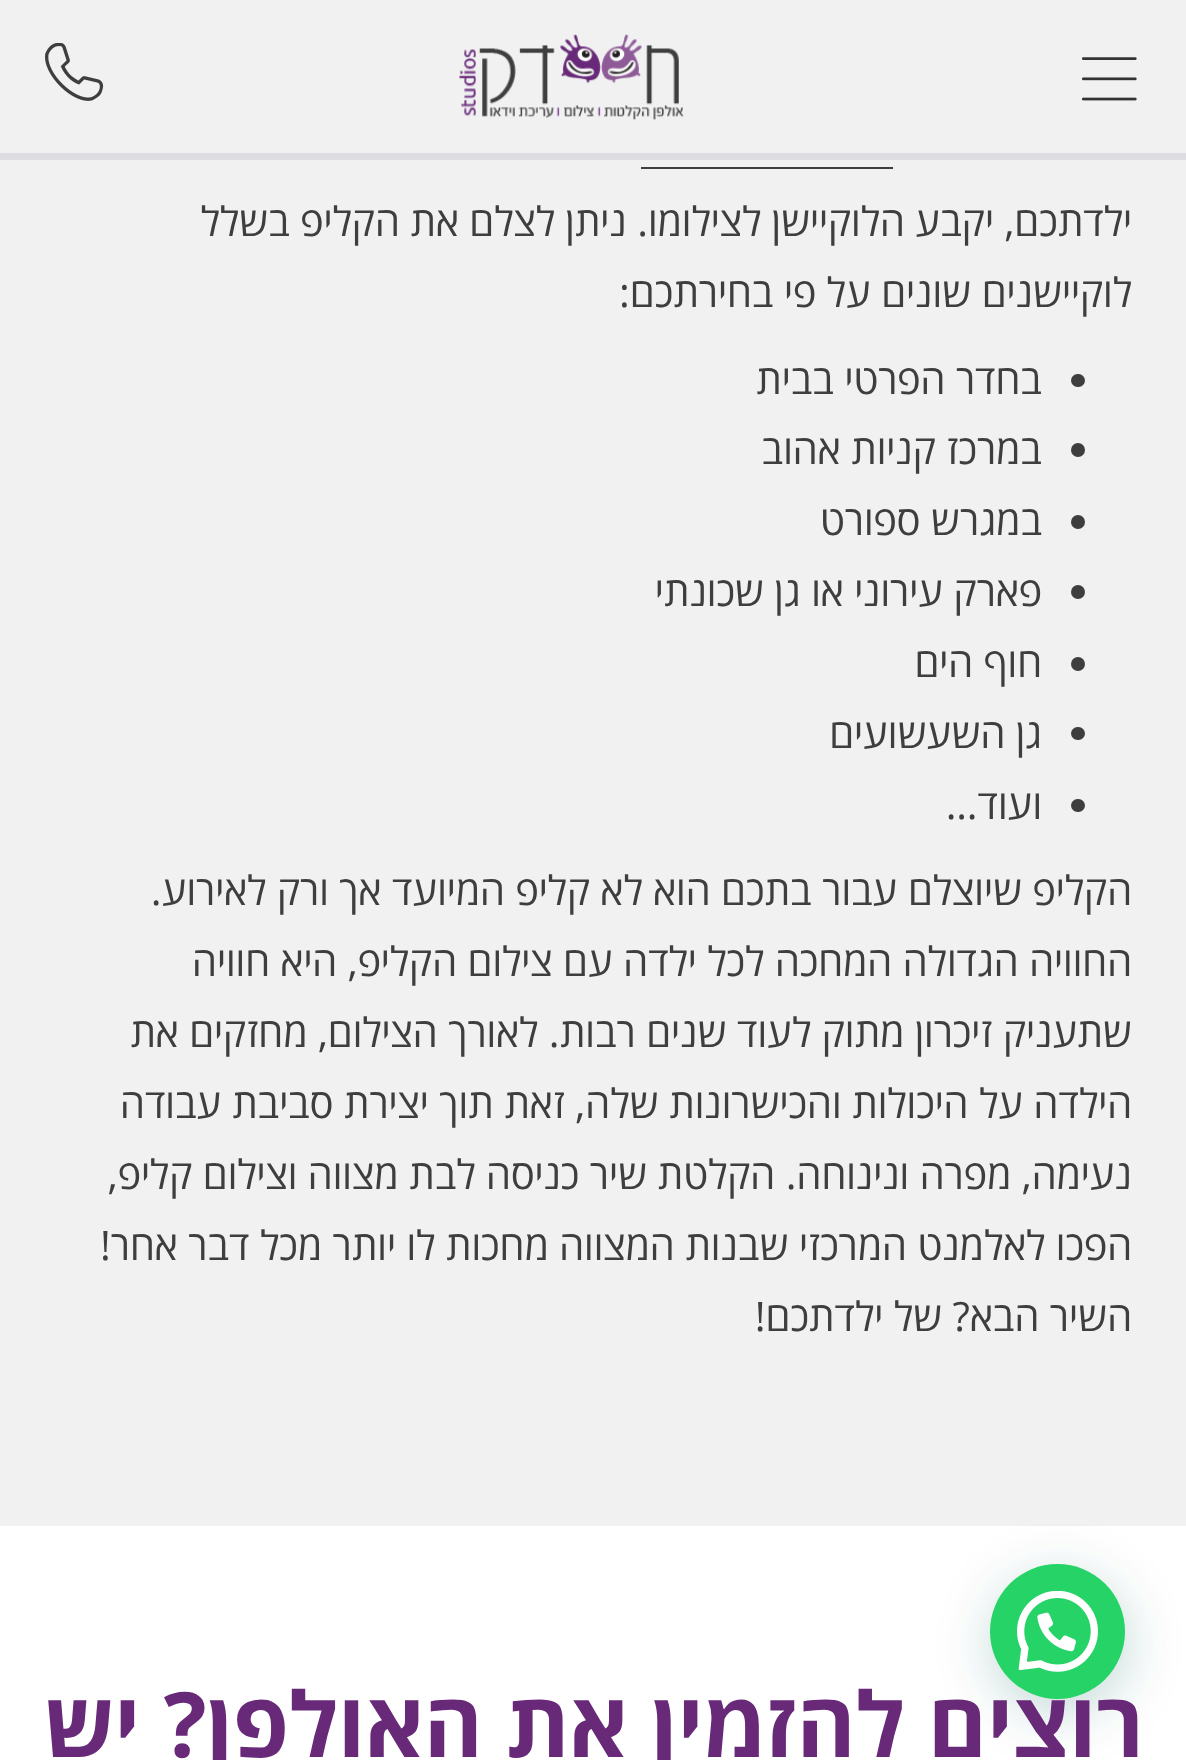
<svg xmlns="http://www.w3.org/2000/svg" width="1186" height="1760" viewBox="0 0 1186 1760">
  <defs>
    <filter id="blur1" x="-50%" y="-200%" width="200%" height="500%"><feGaussianBlur stdDeviation="27"/></filter>
  </defs>
  <rect width="100%" height="100%" fill="#f1f1f2"/>
  <rect x="0" y="153" width="1186" height="7" fill="#dedde2"/>
  <image x="1081" y="57" width="56" height="44" href="img1.png"/>
  <image x="459" y="34" width="225" height="86" href="img2.png"/>
  <image x="45" y="43" width="59" height="58" href="img3.png"/>
  <rect x="641" y="167" width="252" height="2" fill="#3d3e3d"/>
  <text x="1132" y="236" font-family="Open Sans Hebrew" font-size="40.5" direction="rtl" fill="#3d3e3d">ילדתכם, יקבע הלוקיישן לצילומו. ניתן לצלם את הקליפ בשלל</text>
  <text x="1132" y="307" font-family="Open Sans Hebrew" font-size="40.5" direction="rtl" fill="#3d3e3d">לוקיישנים שונים על פי בחירתכם:</text>
  <rect x="1071" y="374" width="14" height="13" rx="6.5" fill="#3d3e3d"/>
  <text x="1042" y="394" font-family="Open Sans Hebrew" font-size="40.5" direction="rtl" fill="#3d3e3d">בחדר הפרטי בבית</text>
  <circle cx="1078" cy="450" r="7" fill="#3d3e3d"/>
  <text x="1042" y="464" font-family="Open Sans Hebrew" font-size="40.5" direction="rtl" fill="#3d3e3d">במרכז קניות אהוב</text>
  <circle cx="1078" cy="522" r="7" fill="#3d3e3d"/>
  <text x="1042" y="535" font-family="Open Sans Hebrew" font-size="40.5" direction="rtl" fill="#3d3e3d">במגרש ספורט</text>
  <circle cx="1078" cy="592" r="7" fill="#3d3e3d"/>
  <text x="1042" y="606" font-family="Open Sans Hebrew" font-size="40.5" direction="rtl" fill="#3d3e3d">פארק עירוני או גן שכונתי</text>
  <circle cx="1078" cy="664" r="7" fill="#3d3e3d"/>
  <text x="1042" y="677" font-family="Open Sans Hebrew" font-size="40.5" direction="rtl" fill="#3d3e3d">חוף הים</text>
  <rect x="1071" y="727" width="14" height="13" rx="6.5" fill="#3d3e3d"/>
  <text x="1042" y="748" font-family="Open Sans Hebrew" font-size="40.5" direction="rtl" fill="#3d3e3d">גן השעשועים</text>
  <rect x="1071" y="799" width="14" height="13" rx="6.5" fill="#3d3e3d"/>
  <text x="1042" y="819" font-family="Open Sans Hebrew" font-size="40.5" direction="rtl" fill="#3d3e3d">ועוד…</text>
  <text x="1132" y="905" font-family="Open Sans Hebrew" font-size="40.5" direction="rtl" fill="#3d3e3d">הקליפ שיוצלם עבור בתכם הוא לא קליפ המיועד אך ורק לאירוע.</text>
  <text x="1132" y="976" font-family="Open Sans Hebrew" font-size="40.5" direction="rtl" fill="#3d3e3d">החוויה הגדולה המחכה לכל ילדה עם צילום הקליפ, היא חוויה</text>
  <text x="1132" y="1047" font-family="Open Sans Hebrew" font-size="40.5" direction="rtl" fill="#3d3e3d">שתעניק זיכרון מתוק לעוד שנים רבות. לאורך הצילום, מחזקים את</text>
  <text x="1132" y="1118" font-family="Open Sans Hebrew" font-size="40.5" direction="rtl" fill="#3d3e3d">הילדה על היכולות והכישרונות שלה, זאת תוך יצירת סביבת עבודה</text>
  <text x="1132" y="1189" font-family="Open Sans Hebrew" font-size="40.5" direction="rtl" fill="#3d3e3d">נעימה, מפרה ונינוחה. הקלטת שיר כניסה לבת מצווה וצילום קליפ,</text>
  <text x="1132" y="1260" font-family="Open Sans Hebrew" font-size="40.5" direction="rtl" fill="#3d3e3d">הפכו לאלמנט המרכזי שבנות המצווה מחכות לו יותר מכל דבר אחר!</text>
  <text x="1132" y="1331" font-family="Open Sans Hebrew" font-size="40.5" direction="rtl" fill="#3d3e3d">השיר הבא? של ילדתכם!</text>
  <rect x="0" y="1526" width="1186" height="234" fill="#ffffff"/>
  <rect x="992" y="1577" width="135" height="135" rx="67.5" fill="#075e54" fill-opacity="0.24" filter="url(#blur1)"/>
  <text x="1144" y="1757" font-family="Open Sans Hebrew" font-size="90" font-weight="bold" direction="rtl" fill="#682a78">רוצים להזמין את האולפן? יש</text>
  <circle cx="1057.5" cy="1631.5" r="67.5" fill="#25d366"/>
  <image x="1017" y="1591" width="81" height="81" href="img4.png"/>
</svg>
